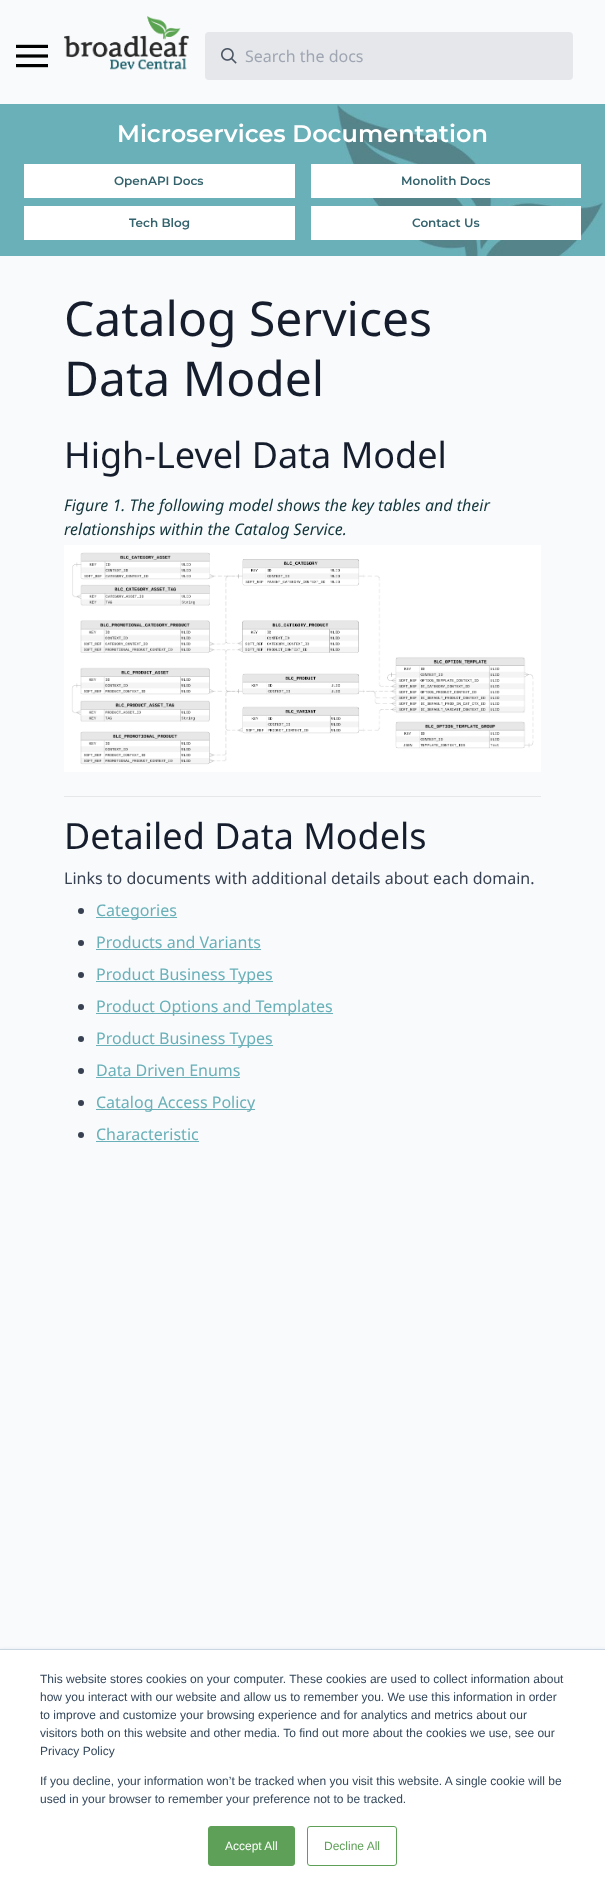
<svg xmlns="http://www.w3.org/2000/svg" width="605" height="1892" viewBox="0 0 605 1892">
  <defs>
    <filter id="blur1" x="-50%" y="-200%" width="200%" height="500%"><feGaussianBlur stdDeviation="1.5"/></filter>
  </defs>
  <rect width="100%" height="100%" fill="#f9fafb"/>
  <image x="16" y="44" width="32" height="24" href="img1.png"/>
  <image x="64" y="16" width="125" height="54" href="img2.png"/>
  <rect x="205" y="32" width="368" height="48" rx="4" fill="#e5e7eb"/>
  <image x="221" y="48" width="16" height="16" href="img3.png"/>
  <text x="245" y="62" font-family="Noto Sans" font-size="16" fill="#9fa6b2">Search the docs</text>
  <rect x="0" y="104" width="605" height="152" fill="#6ab0b8"/>
  <image x="335" y="104" width="268" height="152" href="img4.png"/>
  <text x="117" y="142" font-family="Montserrat" font-size="24" font-weight="600" fill="#ffffff">Microservices Documentation</text>
  <rect x="24" y="164" width="271" height="34" fill="#ffffff"/>
  <text x="114" y="185" font-family="Montserrat" font-size="12" font-weight="600" fill="#34636d">OpenAPI Docs</text>
  <rect x="311" y="164" width="270" height="34" fill="#ffffff"/>
  <text x="401" y="185" font-family="Montserrat" font-size="12" font-weight="600" fill="#34636d">Monolith Docs</text>
  <rect x="24" y="206" width="271" height="34" fill="#ffffff"/>
  <text x="129" y="227" font-family="Montserrat" font-size="12" font-weight="600" fill="#34636d">Tech Blog</text>
  <rect x="311" y="206" width="270" height="34" fill="#ffffff"/>
  <text x="412" y="227" font-family="Montserrat" font-size="12" font-weight="600" fill="#34636d">Contact Us</text>
  <text x="64" y="336" font-family="Noto Sans" font-size="48" fill="#161e2e">Catalog Services</text>
  <text x="64" y="396" font-family="Noto Sans" font-size="48" fill="#161e2e">Data Model</text>
  <text x="64" y="468" font-family="Noto Sans" font-size="36" fill="#161e2e">High-Level Data Model</text>
  <text x="64" y="511" font-family="Noto Sans" font-size="16" font-style="italic" fill="#12353b">Figure 1. The following model shows the key tables and their</text>
  <text x="64" y="535" font-family="Noto Sans" font-size="16" font-style="italic" fill="#12353b">relationships within the Catalog Service.</text>
  <rect x="64" y="545" width="477" height="227" fill="#ffffff"/>
  <image x="71" y="552" width="463" height="213" href="img5.png"/>
  <rect x="64" y="796" width="477" height="1" fill="#e7e7e9"/>
  <text x="64" y="849" font-family="Noto Sans" font-size="36" fill="#161e2e">Detailed Data Models</text>
  <text x="64" y="884" font-family="Noto Sans" font-size="16" fill="#374151">Links to documents with additional details about each domain.</text>
  <circle cx="81" cy="911" r="3" fill="#374151"/>
  <rect x="96" y="917" width="81" height="1" fill="#69b0b9"/>
  <text x="96" y="916" font-family="Noto Sans" font-size="16" fill="#69b0b9">Categories</text>
  <circle cx="81" cy="943" r="3" fill="#374151"/>
  <text x="96" y="948" font-family="Noto Sans" font-size="16" fill="#69b0b9">Products and Variants</text>
  <rect x="96" y="949" width="165" height="1" fill="#69b0b9"/>
  <circle cx="81" cy="975" r="3" fill="#374151"/>
  <rect x="96" y="981" width="177" height="1" fill="#69b0b9"/>
  <text x="96" y="980" font-family="Noto Sans" font-size="16" fill="#69b0b9">Product Business Types</text>
  <circle cx="81" cy="1007" r="3" fill="#374151"/>
  <rect x="96" y="1013" width="237" height="1" fill="#69b0b9"/>
  <text x="96" y="1012" font-family="Noto Sans" font-size="16" fill="#69b0b9">Product Options and Templates</text>
  <circle cx="81" cy="1039" r="3" fill="#374151"/>
  <rect x="96" y="1045" width="177" height="1" fill="#69b0b9"/>
  <text x="96" y="1044" font-family="Noto Sans" font-size="16" fill="#69b0b9">Product Business Types</text>
  <circle cx="81" cy="1071" r="3" fill="#374151"/>
  <text x="96" y="1076" font-family="Noto Sans" font-size="16" fill="#69b0b9">Data Driven Enums</text>
  <rect x="96" y="1077" width="144" height="1" fill="#69b0b9"/>
  <circle cx="81" cy="1103" r="3" fill="#374151"/>
  <rect x="96" y="1109" width="159" height="1" fill="#69b0b9"/>
  <text x="96" y="1108" font-family="Noto Sans" font-size="16" fill="#69b0b9">Catalog Access Policy</text>
  <circle cx="81" cy="1135" r="3" fill="#374151"/>
  <text x="96" y="1140" font-family="Noto Sans" font-size="16" fill="#69b0b9">Characteristic</text>
  <rect x="96" y="1141" width="103" height="1" fill="#69b0b9"/>
  <rect x="0" y="1648" width="605" height="243" fill="#eaf0f6" filter="url(#blur1)"/>
  <rect x="0" y="1650" width="605" height="242" fill="#ffffff"/>
  <rect x="0" y="1649" width="605" height="1" fill="#cbd6e2"/>
  <text x="40" y="1683" font-family="Liberation Sans" font-size="12" fill="#33475b">This website stores cookies on your computer. These cookies are used to collect information about</text>
  <text x="40" y="1701" font-family="Liberation Sans" font-size="12" fill="#33475b">how you interact with our website and allow us to remember you. We use this information in order</text>
  <text x="40" y="1719" font-family="Liberation Sans" font-size="12" fill="#33475b">to improve and customize your browsing experience and for analytics and metrics about our</text>
  <text x="40" y="1737" font-family="Liberation Sans" font-size="12" fill="#33475b">visitors both on this website and other media. To find out more about the cookies we use, see our</text>
  <text x="40" y="1755" font-family="Liberation Sans" font-size="12" fill="#33475b">Privacy Policy</text>
  <text x="40" y="1785" font-family="Liberation Sans" font-size="12" fill="#33475b">If you decline, your information won’t be tracked when you visit this website. A single cookie will be</text>
  <text x="40" y="1803" font-family="Liberation Sans" font-size="12" fill="#33475b">used in your browser to remember your preference not to be tracked.</text>
  <rect x="208.5" y="1826.5" width="86" height="39" rx="2.5" fill="#5ea057" stroke="#5ea057"/>
  <text x="225" y="1850" font-family="Liberation Sans" font-size="12" fill="#ffffff">Accept All</text>
  <rect x="307.5" y="1826.5" width="89" height="39" rx="2.5" fill="none" stroke="#5ea057"/>
  <text x="324" y="1850" font-family="Liberation Sans" font-size="12" fill="#5ea057">Decline All</text>
</svg>
